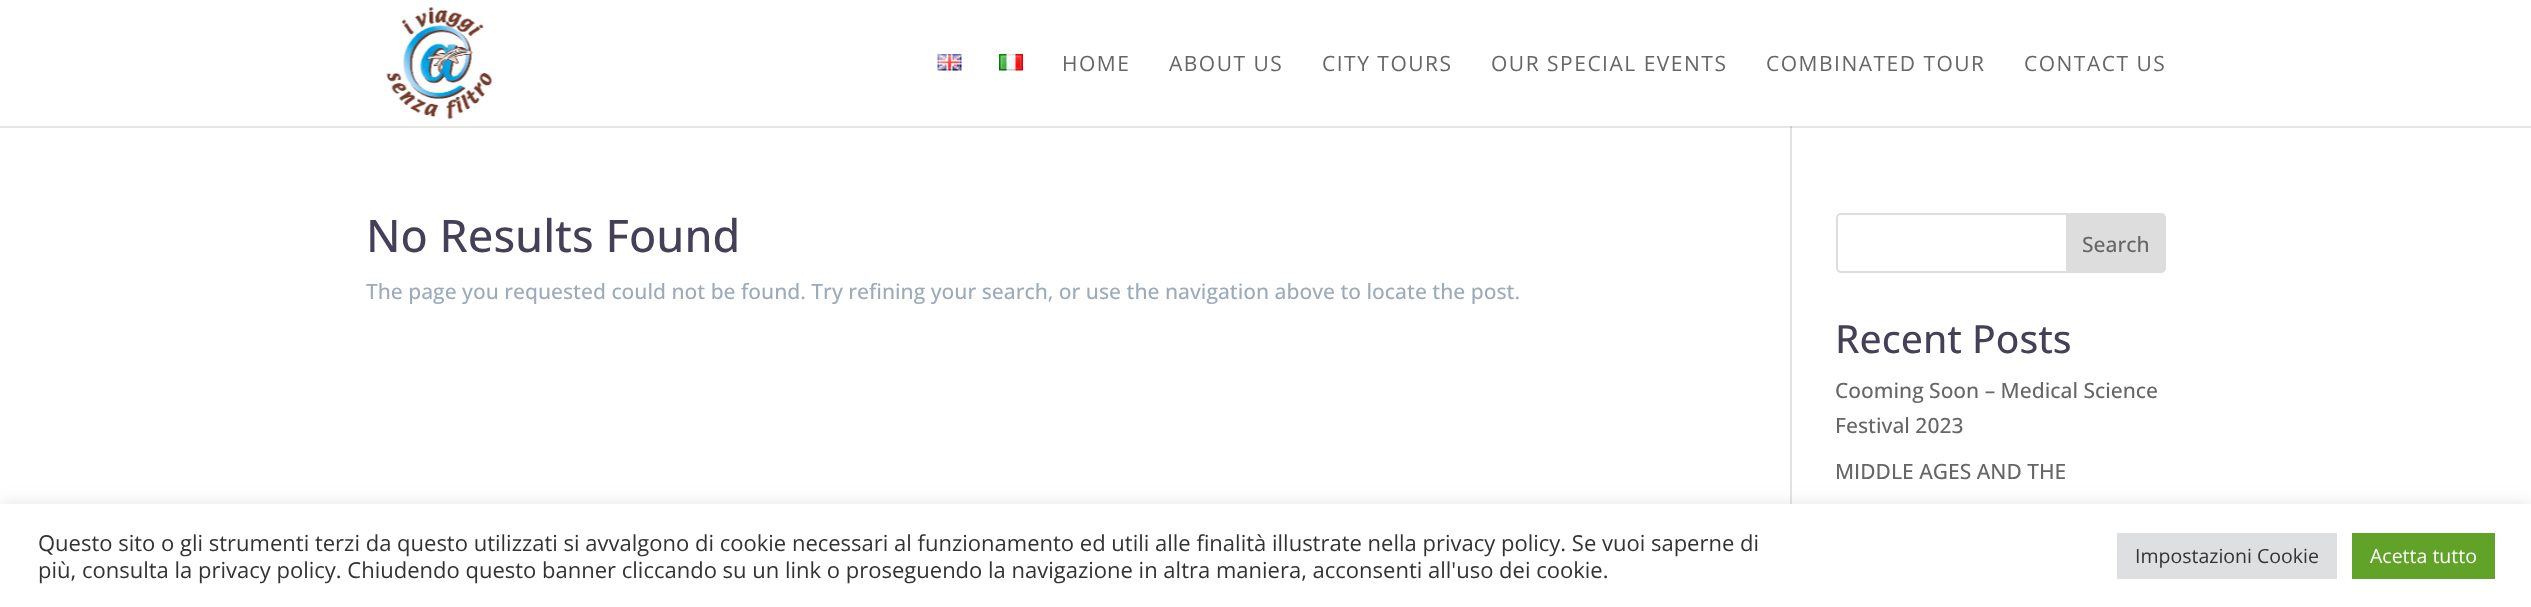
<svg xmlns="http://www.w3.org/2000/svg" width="2531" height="607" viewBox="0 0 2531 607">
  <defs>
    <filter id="blur1" x="-50%" y="-200%" width="200%" height="500%"><feGaussianBlur stdDeviation="7.5"/></filter>
  </defs>
  <rect width="100%" height="100%" fill="#ffffff"/>
  <rect x="0" y="126" width="2531" height="2" fill="#e6e6e6"/>
  <image x="386" y="7" width="108" height="112" href="img1.png"/>
  <image x="937" y="54" width="25" height="17" href="img2.png"/>
  <image x="999" y="54" width="24" height="17" href="img3.png"/>
  <text x="1062" y="71" font-family="Open Sans" font-size="21" letter-spacing="1.5" fill="#666666">HOME</text>
  <text x="1169" y="71" font-family="Open Sans" font-size="21" letter-spacing="1.5" fill="#666666">ABOUT US</text>
  <text x="1322" y="71" font-family="Open Sans" font-size="21" letter-spacing="1.5" fill="#666666">CITY TOURS</text>
  <text x="1491" y="71" font-family="Open Sans" font-size="21" letter-spacing="1.5" fill="#666666">OUR SPECIAL EVENTS</text>
  <text x="1766" y="71" font-family="Open Sans" font-size="21" letter-spacing="1.5" fill="#666666">COMBINATED TOUR</text>
  <text x="2024" y="71" font-family="Open Sans" font-size="21" letter-spacing="1.5" fill="#666666">CONTACT US</text>
  <rect x="1790" y="126" width="2" height="378" fill="#e2e2e2"/>
  <rect x="1790" y="126" width="2" height="2" fill="#cbcbcb"/>
  <text x="366" y="252" font-family="Open Sans" font-size="45" font-weight="500" fill="#453f57">No Results Found</text>
  <text x="366" y="299" font-family="Open Sans" font-size="21" font-weight="500" fill="#9cabbc">The page you requested could not be found. Try refining your search, or use the navigation above to locate the post.</text>
  <rect x="1837" y="214" width="328" height="58" rx="4" fill="none" stroke="#dddddd" stroke-width="2"/>
  <path d="M2067 214H2161C2163 214 2165 216 2165 218V268C2165 270 2163 272 2161 272H2067Z" fill="#dddddd" stroke="#dddddd" stroke-width="2"/>
  <text x="2082" y="252" font-family="Open Sans" font-size="21" font-weight="500" fill="#666666">Search</text>
  <text x="1835" y="353" font-family="Open Sans" font-size="39" font-weight="500" fill="#453f57">Recent Posts</text>
  <text x="1835" y="398" font-family="Open Sans" font-size="21" font-weight="500" fill="#666666">Cooming Soon – Medical Science</text>
  <text x="1835" y="433" font-family="Open Sans" font-size="21" font-weight="500" fill="#666666">Festival 2023</text>
  <text x="1835" y="479" font-family="Open Sans" font-size="21" font-weight="500" fill="#666666">MIDDLE AGES AND THE</text>
  <rect x="0" y="503" width="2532" height="103" fill="#acabab" fill-opacity="0.3" filter="url(#blur1)"/>
  <rect x="0" y="504" width="2531" height="103" fill="#ffffff"/>
  <text x="38" y="551" font-family="Open Sans" font-size="22" fill="#333333">Questo sito o gli strumenti terzi da questo utilizzati si avvalgono di cookie necessari al funzionamento ed utili alle finalità illustrate nella privacy policy. Se vuoi saperne di</text>
  <text x="38" y="578" font-family="Open Sans" font-size="22" fill="#333333">più, consulta la privacy policy. Chiudendo questo banner cliccando su un link o proseguendo la navigazione in altra maniera, acconsenti all'uso dei cookie.</text>
  <rect x="2117" y="533" width="220" height="46" fill="#dedfe0"/>
  <text x="2135" y="563" font-family="Open Sans" font-size="19.5" fill="#333333">Impostazioni Cookie</text>
  <rect x="2352" y="533" width="143" height="46" fill="#61a229"/>
  <text x="2370" y="563" font-family="Open Sans" font-size="19.5" fill="#ffffff">Acetta tutto</text>
</svg>
